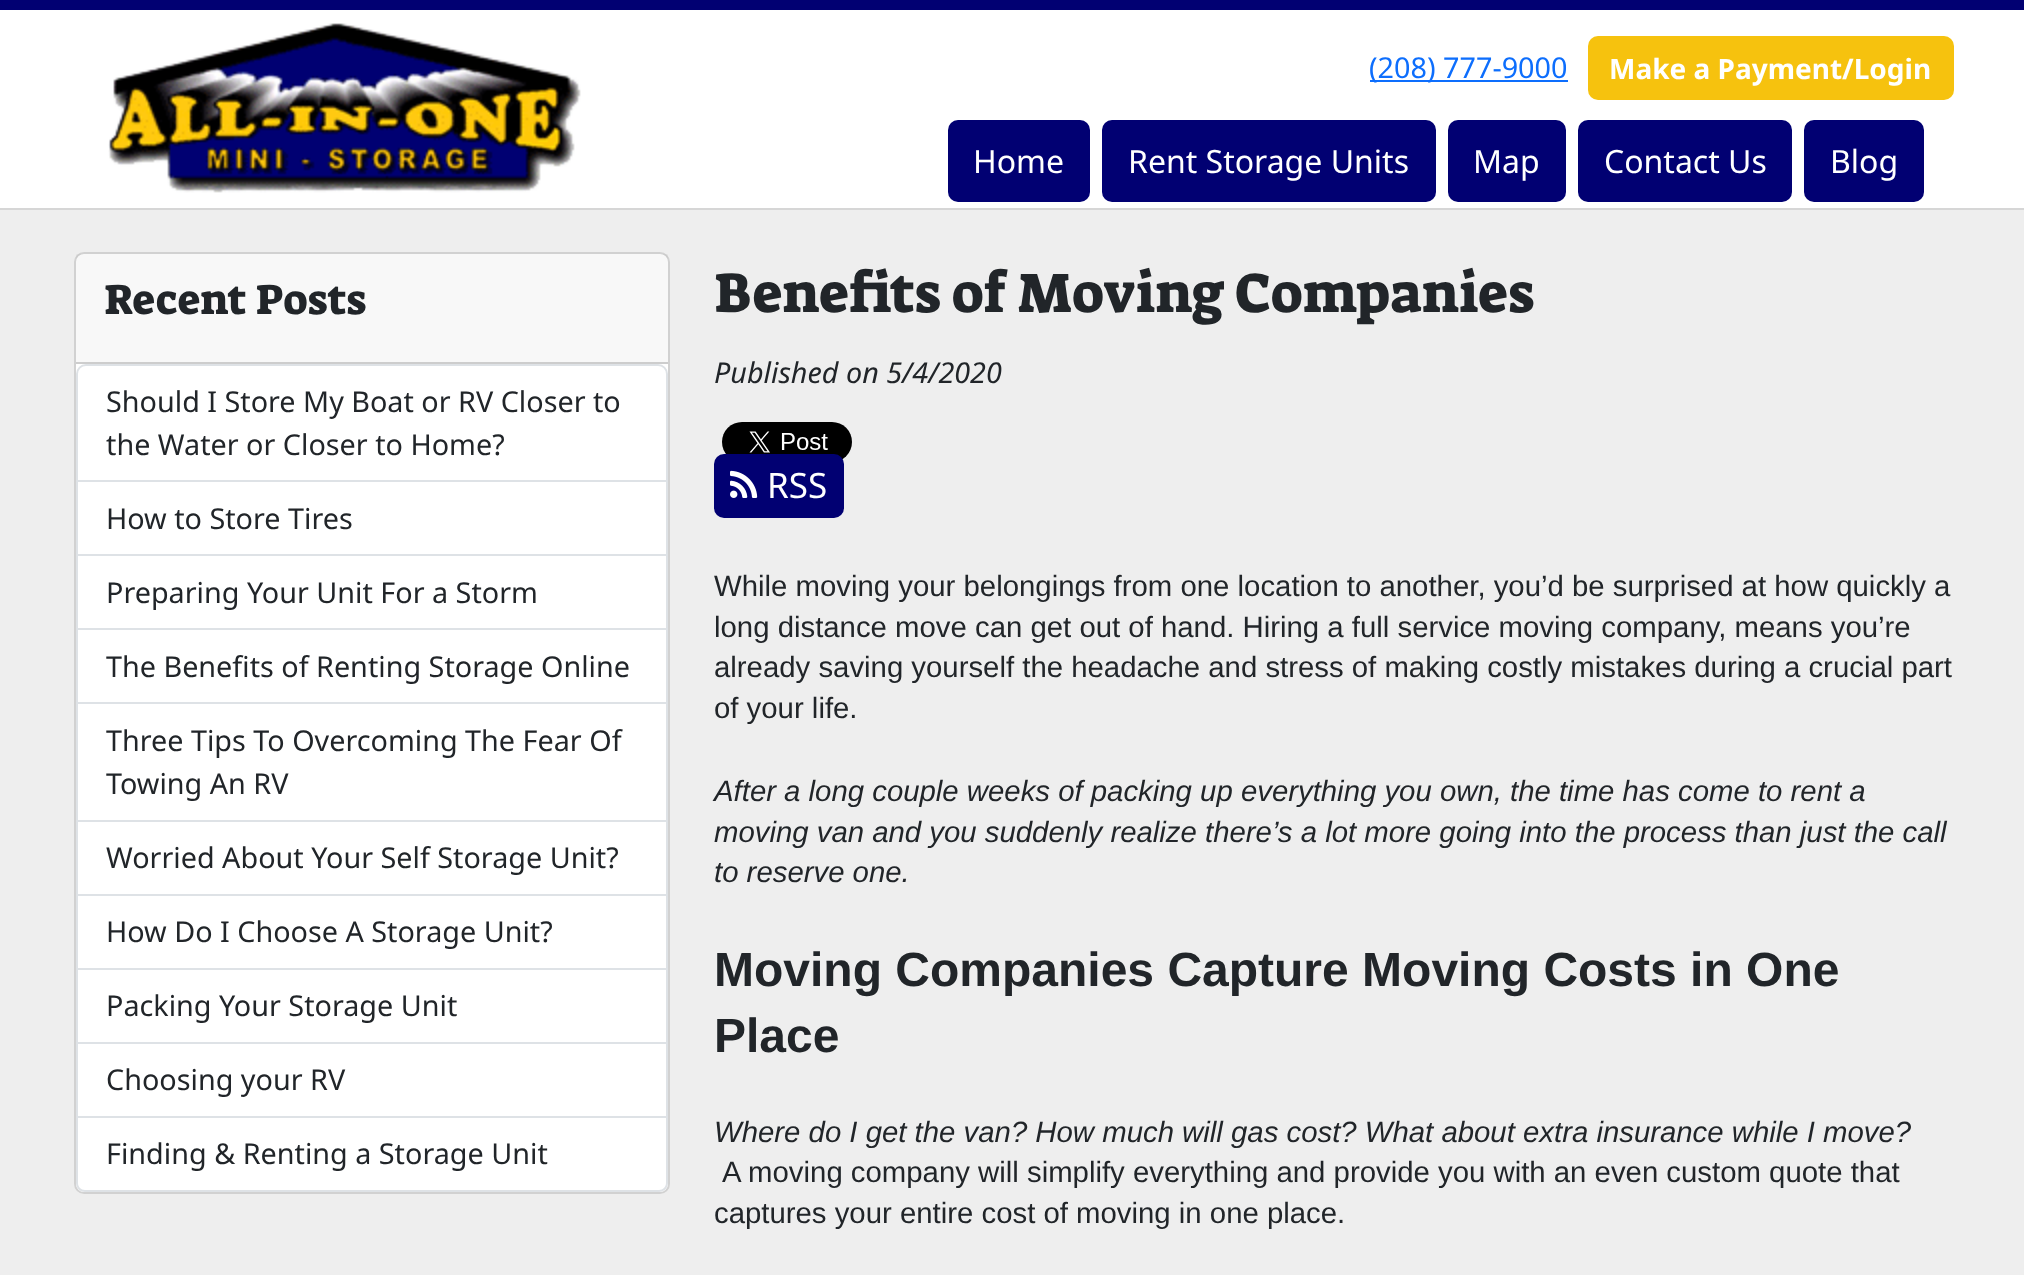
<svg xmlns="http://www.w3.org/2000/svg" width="2024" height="1275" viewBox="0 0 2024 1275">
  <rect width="100%" height="100%" fill="#eeeeee"/>
  <rect x="0" y="208" width="2024" height="2" fill="#d6d6d6"/>
  <rect x="0" y="10" width="2024" height="198" fill="#ffffff"/>
  <rect x="0" y="0" width="2024" height="10" fill="#010072"/>
  <image x="108" y="23" width="473" height="170" href="img1.png"/>
  <rect x="1370" y="80" width="198" height="2" fill="#0d6efd"/>
  <text x="1369" y="78" font-family="Noto Sans" font-size="28.75" fill="#0d6efd">(208) 777-9000</text>
  <rect x="1588" y="36" width="366" height="64" rx="10" fill="#f6c20e"/>
  <text x="1609" y="79" font-family="Noto Sans" font-size="28" font-weight="bold" fill="#ffffff">Make a Payment/Login</text>
  <rect x="948" y="120" width="142" height="82" rx="10" fill="#010072"/>
  <text x="973" y="173" font-family="Noto Sans" font-size="32" fill="#ffffff">Home</text>
  <rect x="1102" y="120" width="334" height="82" rx="10" fill="#010072"/>
  <text x="1128" y="173" font-family="Noto Sans" font-size="32" fill="#ffffff">Rent Storage Units</text>
  <rect x="1448" y="120" width="118" height="82" rx="10" fill="#010072"/>
  <text x="1473" y="173" font-family="Noto Sans" font-size="32" fill="#ffffff">Map</text>
  <rect x="1578" y="120" width="214" height="82" rx="10" fill="#010072"/>
  <text x="1604" y="173" font-family="Noto Sans" font-size="32" fill="#ffffff">Contact Us</text>
  <rect x="1804" y="120" width="120" height="82" rx="10" fill="#010072"/>
  <text x="1830" y="173" font-family="Noto Sans" font-size="32" fill="#ffffff">Blog</text>
  <rect x="74" y="252" width="596" height="942" rx="10" fill="#ffffff"/>
  <rect x="75" y="253" width="594" height="940" rx="9" fill="none" stroke="#000000" stroke-opacity="0.18" stroke-width="2"/>
  <rect x="76" y="254" width="592" height="108" fill="#212529" fill-opacity="0.03"/>
  <rect x="76" y="362" width="592" height="2" fill="#cdcdcd"/>
  <text x="104" y="314" font-family="Suez One" font-size="42.75" fill="#212529">Recent Posts</text>
  <path d="M86 365H658C663 365 667 369 667 374V481H77V374C77 369 81 365 86 365Z" fill="none" stroke="#dee2e6" stroke-width="2"/>
  <text x="106" y="412" font-family="Noto Sans" font-size="28.75" fill="#212529">Should I Store My Boat or RV Closer to</text>
  <text x="106" y="455" font-family="Noto Sans" font-size="28.75" fill="#212529">the Water or Closer to Home?</text>
  <rect x="666" y="482" width="2" height="636" fill="#dee2e6"/>
  <rect x="76" y="554" width="592" height="2" fill="#dee2e6"/>
  <rect x="76" y="482" width="2" height="74" fill="#dee2e6"/>
  <text x="106" y="529" font-family="Noto Sans" font-size="28.75" fill="#212529">How to Store Tires</text>
  <rect x="76" y="628" width="592" height="2" fill="#dee2e6"/>
  <rect x="76" y="556" width="2" height="74" fill="#dee2e6"/>
  <text x="106" y="603" font-family="Noto Sans" font-size="28.75" fill="#212529">Preparing Your Unit For a Storm</text>
  <rect x="76" y="702" width="592" height="2" fill="#dee2e6"/>
  <rect x="76" y="630" width="2" height="74" fill="#dee2e6"/>
  <text x="106" y="677" font-family="Noto Sans" font-size="28.75" fill="#212529">The Benefits of Renting Storage Online</text>
  <rect x="76" y="820" width="592" height="2" fill="#dee2e6"/>
  <rect x="76" y="704" width="2" height="118" fill="#dee2e6"/>
  <text x="106" y="751" font-family="Noto Sans" font-size="28.75" fill="#212529">Three Tips To Overcoming The Fear Of</text>
  <text x="106" y="794" font-family="Noto Sans" font-size="28.75" fill="#212529">Towing An RV</text>
  <rect x="76" y="894" width="592" height="2" fill="#dee2e6"/>
  <rect x="76" y="822" width="2" height="74" fill="#dee2e6"/>
  <text x="106" y="868" font-family="Noto Sans" font-size="28.75" fill="#212529">Worried About Your Self Storage Unit?</text>
  <rect x="76" y="968" width="592" height="2" fill="#dee2e6"/>
  <rect x="76" y="896" width="2" height="74" fill="#dee2e6"/>
  <text x="106" y="942" font-family="Noto Sans" font-size="28.75" fill="#212529">How Do I Choose A Storage Unit?</text>
  <rect x="76" y="1042" width="592" height="2" fill="#dee2e6"/>
  <rect x="76" y="970" width="2" height="74" fill="#dee2e6"/>
  <text x="106" y="1016" font-family="Noto Sans" font-size="28.75" fill="#212529">Packing Your Storage Unit</text>
  <rect x="76" y="1116" width="592" height="2" fill="#dee2e6"/>
  <rect x="76" y="1044" width="2" height="74" fill="#dee2e6"/>
  <text x="106" y="1090" font-family="Noto Sans" font-size="28.75" fill="#212529">Choosing your RV</text>
  <path d="M76 1118H668V1183C668 1188 664 1192 659 1192H85C80 1192 76 1188 76 1183ZM78 1118H666V1183C666 1187 663 1190 659 1190H85C81 1190 78 1187 78 1183Z" fill="#dee2e6" fill-rule="evenodd"/>
  <text x="106" y="1164" font-family="Noto Sans" font-size="28.75" fill="#212529">Finding &amp; Renting a Storage Unit</text>
  <text x="714" y="312" font-family="Suez One" font-size="56.4" fill="#212529">Benefits of Moving Companies</text>
  <text x="714" y="383" font-family="Noto Sans" font-size="28.75" font-style="italic" fill="#212529">Published on 5/4/2020</text>
  <image x="722" y="422" width="130" height="38" href="img2.png"/>
  <rect x="714" y="454" width="130" height="64" rx="10" fill="#010072"/>
  <image x="730" y="470" width="28" height="28" href="img3.png"/>
  <text x="767" y="498" font-family="Noto Sans" font-size="35" fill="#ffffff">RSS</text>
  <text x="714" y="596" font-family="Liberation Sans" font-size="29.35" fill="#212529">While moving your belongings from one location to another, you’d be surprised at how quickly a</text>
  <text x="714" y="637" font-family="Liberation Sans" font-size="29.35" fill="#212529">long distance move can get out of hand. Hiring a full service moving company, means you’re</text>
  <text x="714" y="677" font-family="Liberation Sans" font-size="29.35" fill="#212529">already saving yourself the headache and stress of making costly mistakes during a crucial part</text>
  <text x="714" y="718" font-family="Liberation Sans" font-size="29.35" fill="#212529">of your life.</text>
  <text x="714" y="801" font-family="Liberation Sans" font-size="29.35" font-style="italic" fill="#212529">After a long couple weeks of packing up everything you own, the time has come to rent a</text>
  <text x="714" y="842" font-family="Liberation Sans" font-size="29.35" font-style="italic" fill="#212529">moving van and you suddenly realize there’s a lot more going into the process than just the call</text>
  <text x="714" y="882" font-family="Liberation Sans" font-size="29.35" font-style="italic" fill="#212529">to reserve one.</text>
  <text x="714" y="986" font-family="Liberation Sans" font-size="48" font-weight="bold" fill="#212529">Moving Companies Capture Moving Costs in One</text>
  <text x="714" y="1052" font-family="Liberation Sans" font-size="48" font-weight="bold" fill="#212529">Place</text>
  <text x="714" y="1142" font-family="Liberation Sans" font-size="29.35" font-style="italic" fill="#212529">Where do I get the van? How much will gas cost? What about extra insurance while I move?</text>
  <text x="722" y="1182" font-family="Liberation Sans" font-size="29.35" fill="#212529">A moving company will simplify everything and provide you with an even custom quote that</text>
  <text x="714" y="1223" font-family="Liberation Sans" font-size="29.35" fill="#212529">captures your entire cost of moving in one place.</text>
</svg>
